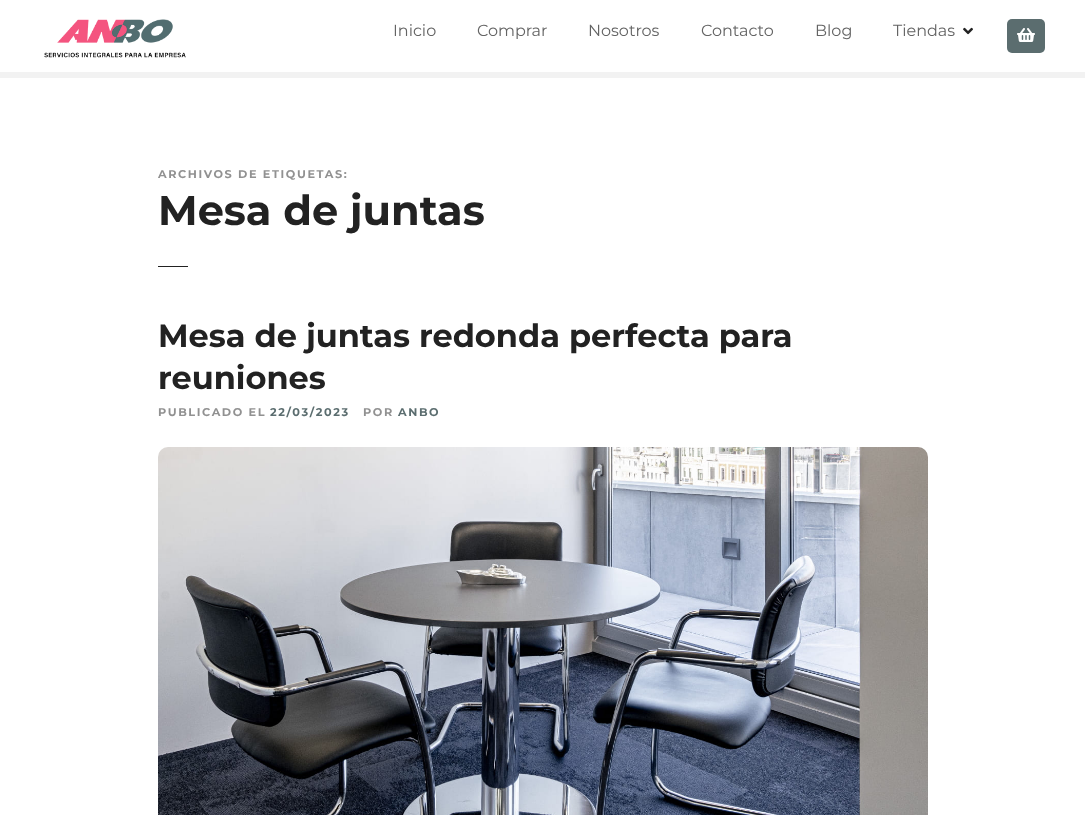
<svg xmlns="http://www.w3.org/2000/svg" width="1085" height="815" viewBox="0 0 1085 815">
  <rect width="100%" height="100%" fill="#ffffff"/>
  <image x="44" y="19" width="142" height="39" href="img1.png"/>
  <text x="393" y="36" font-family="Montserrat" font-size="16" fill="#646464">Inicio</text>
  <text x="477" y="36" font-family="Montserrat" font-size="16" fill="#646464">Comprar</text>
  <text x="588" y="36" font-family="Montserrat" font-size="16" fill="#646464">Nosotros</text>
  <text x="701" y="36" font-family="Montserrat" font-size="16" fill="#646464">Contacto</text>
  <text x="815" y="36" font-family="Montserrat" font-size="16" fill="#646464">Blog</text>
  <text x="893" y="36" font-family="Montserrat" font-size="16" fill="#646464">Tiendas</text>
  <image x="963" y="27" width="10" height="8" href="img2.png"/>
  <rect x="1007" y="19" width="38" height="34" rx="5" fill="#5b6d6f"/>
  <image x="1017" y="28" width="18" height="14" href="img3.png"/>
  <rect x="0" y="72" width="1085" height="6" fill="#f2f2f2"/>
  <text x="158" y="178" font-family="Montserrat" font-size="11.25" font-weight="bold" letter-spacing="1.6" fill="#919191">ARCHIVOS DE ETIQUETAS:</text>
  <text x="158" y="225" font-family="Montserrat" font-size="41.5" font-weight="bold" fill="#222222">Mesa de juntas</text>
  <rect x="158" y="266" width="30" height="1" fill="#222222"/>
  <text x="158" y="347" font-family="Montserrat" font-size="32" font-weight="bold" fill="#222222">Mesa de juntas redonda perfecta para</text>
  <text x="158" y="389" font-family="Montserrat" font-size="32" font-weight="bold" fill="#222222">reuniones</text>
  <text x="158" y="416" font-family="Montserrat" font-size="11.25" font-weight="bold" letter-spacing="1.6" fill="#919191">PUBLICADO EL</text>
  <text x="270" y="416" font-family="Montserrat" font-size="11.25" font-weight="bold" letter-spacing="1.6" fill="#5b6d6f">22/03/2023</text>
  <text x="363" y="416" font-family="Montserrat" font-size="11.25" font-weight="bold" letter-spacing="1.6" fill="#919191">POR</text>
  <text x="398" y="416" font-family="Montserrat" font-size="11.25" font-weight="bold" letter-spacing="1.6" fill="#5b6d6f">ANBO</text>
  <image x="158" y="447" width="770" height="368" href="img4.png"/>
</svg>
